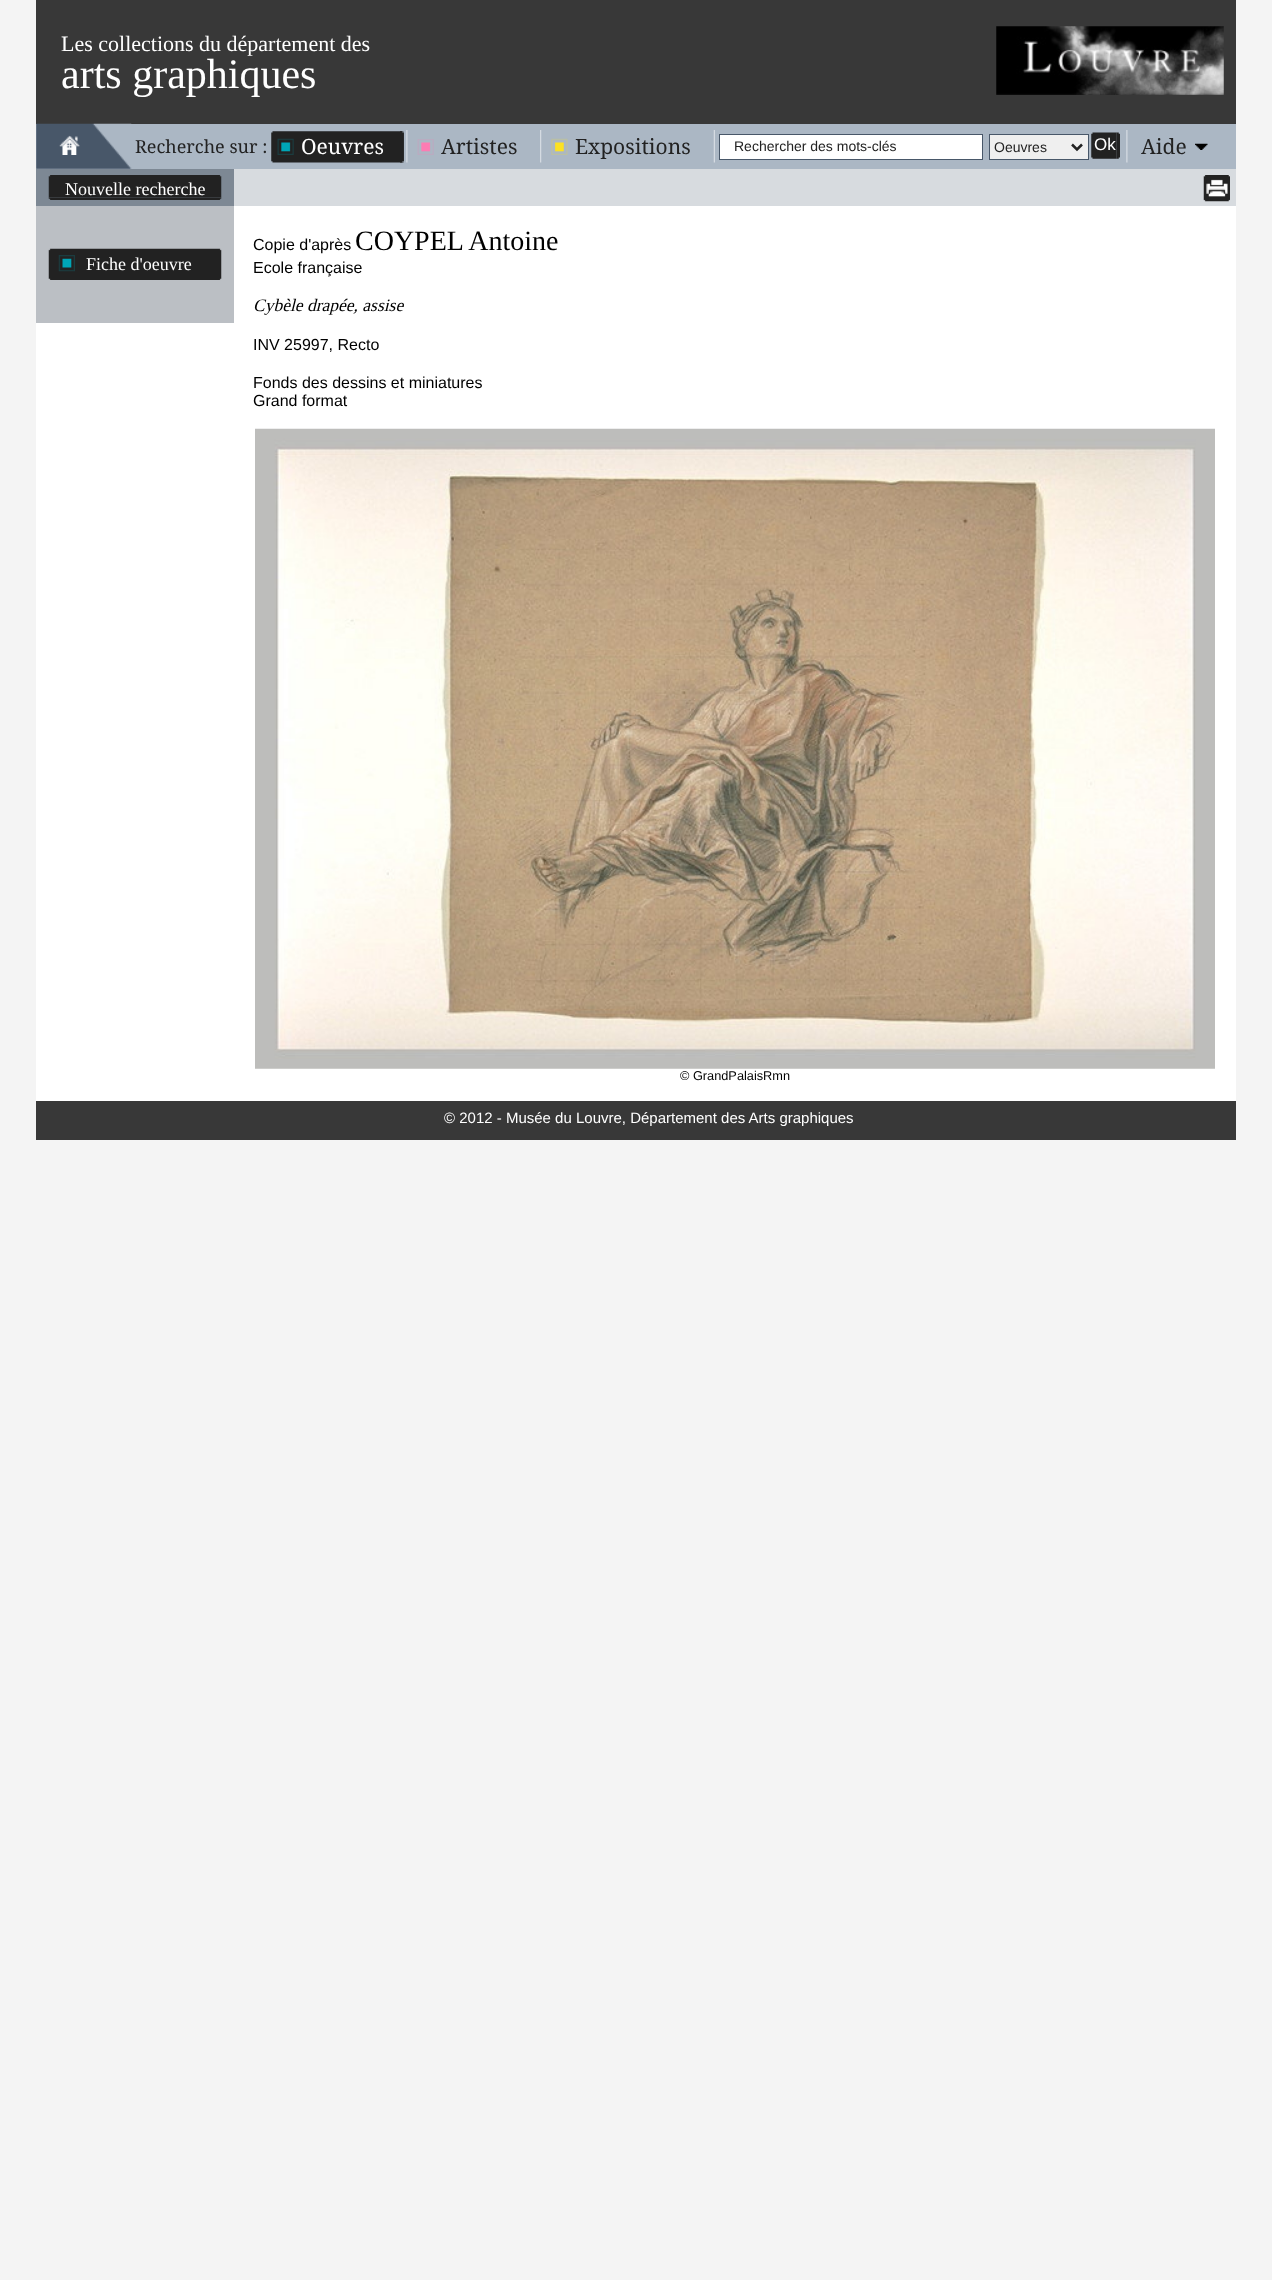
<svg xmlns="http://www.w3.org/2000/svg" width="1272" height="2280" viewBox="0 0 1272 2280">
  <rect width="100%" height="100%" fill="#f4f4f4"/>
  <rect x="36" y="206" width="1200" height="895" fill="#ffffff"/>
  <rect x="36" y="0" width="1200" height="124" fill="#383838"/>
  <text x="61" y="51" font-family="Tinos" font-size="22" fill="#ffffff">Les collections du département des</text>
  <image x="996" y="26" width="228" height="69" href="img1.png"/>
  <text x="61" y="88" font-family="Tinos" font-size="42" fill="#ffffff">arts graphiques</text>
  <rect x="36" y="124" width="1200" height="45" fill="#abb7c4"/>
  <image x="36" y="123" width="96" height="46" href="img2.png"/>
  <image x="59" y="135" width="21" height="20" href="img3.png"/>
  <text x="135" y="153" font-family="Droid Serif" font-size="18" fill="#222222">Recherche sur :</text>
  <image x="406" y="130" width="2" height="33" href="img4.png"/>
  <image x="271" y="131" width="133" height="32" href="img5.png"/>
  <image x="400" y="131" width="4" height="32" href="img6.png"/>
  <image x="277" y="138" width="17" height="17" href="img7.png"/>
  <text x="301" y="154" font-family="Droid Serif" font-size="21" fill="#ffffff">Oeuvres</text>
  <image x="540" y="130" width="2" height="33" href="img8.png"/>
  <image x="417" y="139" width="17" height="16" href="img9.png"/>
  <text x="441" y="154" font-family="Droid Serif" font-size="21" fill="#222222">Artistes</text>
  <image x="713" y="130" width="2" height="33" href="img10.png"/>
  <image x="551" y="138" width="17" height="17" href="img11.png"/>
  <text x="575" y="154" font-family="Droid Serif" font-size="21" fill="#222222">Expositions</text>
  <rect x="719.5" y="134.5" width="263" height="25" fill="#ffffff" stroke="#485769"/>
  <text x="734" y="151" font-family="Liberation Sans" font-size="14" fill="#222222">Rechercher des mots-clés</text>
  <rect x="989.5" y="134.5" width="99" height="25" fill="#efefef" stroke="#485769"/>
  <path d="M1072 144.5L1077 149.5L1082 144.5" fill="none" stroke="#222222" stroke-width="2.5"/>
  <text x="994" y="152" font-family="Liberation Sans" font-size="14" fill="#222222">Oeuvres</text>
  <image x="1091" y="132" width="26" height="27" href="img12.png"/>
  <text x="1094" y="150" font-family="Liberation Sans" font-size="17" fill="#ffffff">Ok</text>
  <image x="1116" y="132" width="4" height="27" href="img13.png"/>
  <image x="1126" y="130" width="2" height="33" href="img4.png"/>
  <text x="1141" y="154" font-family="Droid Serif" font-size="21" fill="#222222">Aide</text>
  <image x="1195" y="143" width="13" height="7" href="img14.png"/>
  <rect x="36" y="169" width="198" height="37" fill="#7d8894"/>
  <image x="48" y="175" width="174" height="23" href="img15.png"/>
  <text x="65" y="195" font-family="Tinos" font-size="18" fill="#ffffff">Nouvelle recherche</text>
  <image x="48" y="197" width="174" height="3" href="img16.png"/>
  <rect x="36" y="206" width="198" height="117" fill="#bbbfc4"/>
  <image x="48" y="248" width="174" height="27" href="img17.png"/>
  <image x="58" y="255" width="17" height="17" href="img18.png"/>
  <text x="86" y="270" font-family="Tinos" font-size="18" fill="#ffffff">Fiche d'oeuvre</text>
  <image x="48" y="275" width="174" height="5" href="img19.png"/>
  <rect x="234" y="169" width="1002" height="37" fill="#d7dbdf"/>
  <image x="1203" y="175" width="27" height="27" href="img20.png"/>
  <text x="253" y="250" font-family="Liberation Sans" font-size="16" fill="#000000">Copie d'après</text>
  <text x="355" y="250" font-family="Tinos" font-size="28" fill="#000000">COYPEL Antoine</text>
  <text x="253" y="273" font-family="Liberation Sans" font-size="16" fill="#000000">Ecole française</text>
  <text x="253" y="311" font-family="Tinos" font-size="17.5" font-style="italic" fill="#000000">Cybèle drapée, assise</text>
  <text x="253" y="350" font-family="Liberation Sans" font-size="16" fill="#000000">INV 25997, Recto</text>
  <text x="253" y="388" font-family="Liberation Sans" font-size="16" fill="#000000">Fonds des dessins et miniatures</text>
  <text x="253" y="406" font-family="Liberation Sans" font-size="16" fill="#000000">Grand format</text>
  <image x="255" y="428" width="960" height="641" href="img21.png"/>
  <text x="680" y="1080" font-family="Liberation Sans" font-size="12.75" fill="#000000">© GrandPalaisRmn</text>
  <rect x="36" y="1101" width="1200" height="39" fill="#383838"/>
  <text x="444" y="1123" font-family="Liberation Sans" font-size="15" fill="#ffffff">© 2012 - Musée du Louvre, Département des Arts graphiques</text>
</svg>
